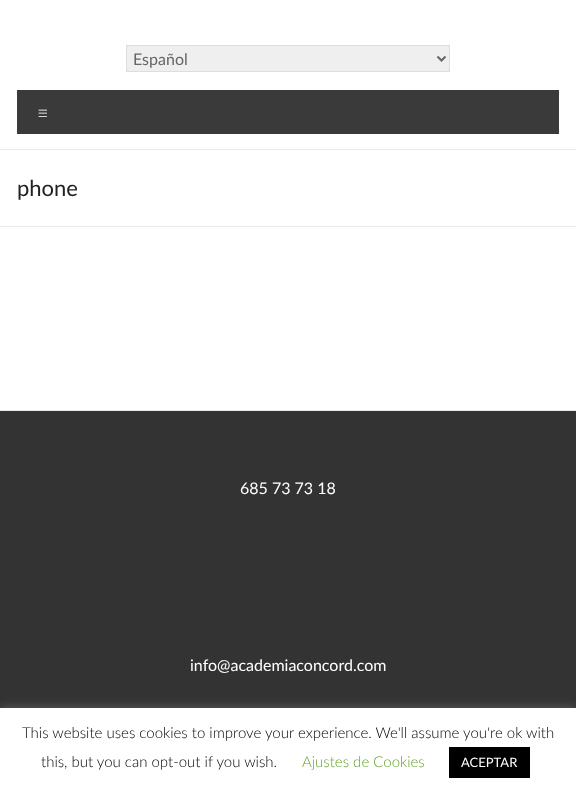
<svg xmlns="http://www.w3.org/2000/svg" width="576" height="795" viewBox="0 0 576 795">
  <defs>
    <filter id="blur1" x="-50%" y="-200%" width="200%" height="500%"><feGaussianBlur stdDeviation="5"/></filter>
  </defs>
  <rect width="100%" height="100%" fill="#ffffff"/>
  <rect x="0" y="149" width="576" height="1" fill="#eaeaea"/>
  <rect x="126.5" y="45.5" width="323" height="26" fill="#efefef" stroke="#dddddd"/>
  <path d="M437.5 56.5L441.5 60.5L445.5 56.5" fill="none" stroke="#666666" stroke-width="2"/>
  <text x="133" y="65" font-family="Lato" font-size="16" fill="#666666">Español</text>
  <rect x="17" y="90" width="542" height="44" fill="#3a3a3a"/>
  <text x="37" y="120" font-family="Lato" font-size="20" font-weight="300" fill="#ffffff">≡</text>
  <rect x="0" y="226" width="576" height="1" fill="#eaeaea"/>
  <text x="17" y="196" font-family="Lato" font-size="22" fill="#222222">phone</text>
  <rect x="0" y="411" width="576" height="297" fill="#333333"/>
  <rect x="0" y="410" width="576" height="1" fill="#eaeaea"/>
  <text x="240" y="494" font-family="Lato" font-size="16" fill="#ffffff">685 73 73 18</text>
  <text x="190" y="671" font-family="Lato" font-size="16" fill="#ffffff">info@academiaconcord.com</text>
  <rect x="0" y="707" width="576" height="87" fill="#acabab" fill-opacity="0.3" filter="url(#blur1)"/>
  <rect x="0" y="708" width="576" height="87" fill="#ffffff"/>
  <text x="22" y="738" font-family="Lato" font-size="15" font-weight="300" fill="#000000">This website uses cookies to improve your experience. We'll assume you're ok with</text>
  <text x="41" y="767" font-family="Lato" font-size="15" font-weight="300" fill="#000000">this, but you can opt-out if you wish.</text>
  <text x="302" y="767" font-family="Lato" font-size="15" font-weight="300" fill="#62a329">Ajustes de Cookies</text>
  <rect x="449" y="747" width="81" height="31" fill="#000000"/>
  <text x="461" y="767" font-family="Lato" font-size="13" fill="#ffffff">ACEPTAR</text>
</svg>
